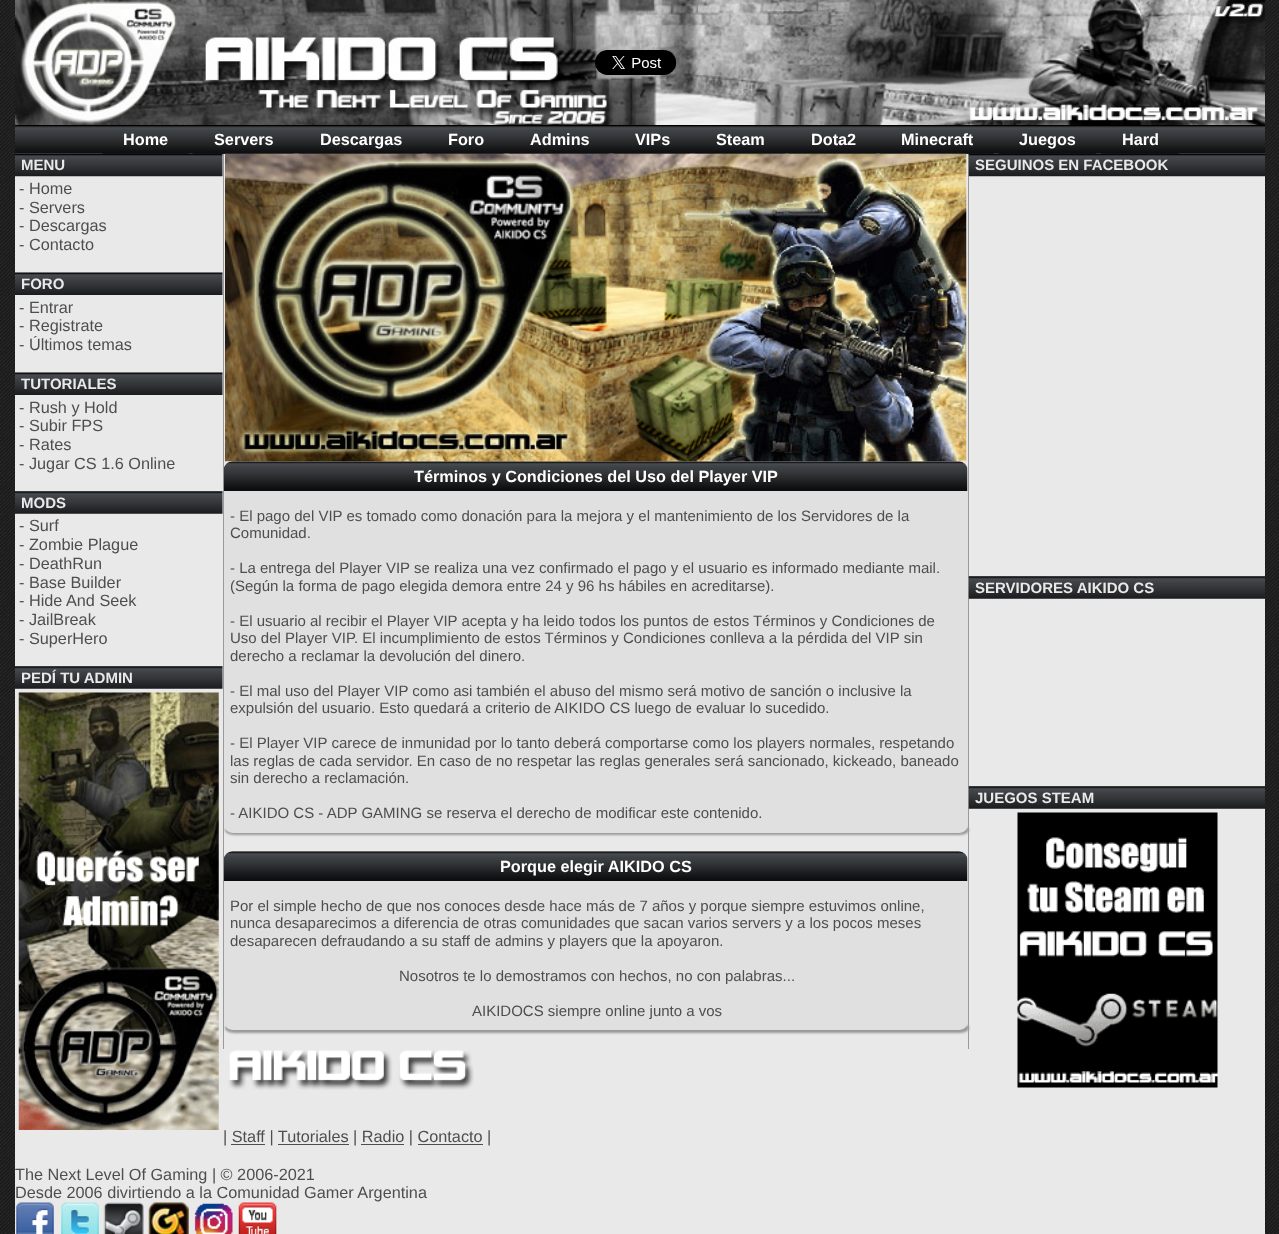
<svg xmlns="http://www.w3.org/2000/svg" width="1279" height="1234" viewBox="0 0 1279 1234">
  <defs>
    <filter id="blur1" x="-50%" y="-200%" width="200%" height="500%"><feGaussianBlur stdDeviation="1"/></filter>
  </defs>
  <rect width="100%" height="100%" fill="#ffffff"/>
  <image x="0" y="0" width="1279" height="1234" href="img1.png"/>
  <rect x="15" y="153" width="1250" height="1081" fill="#eae9e9"/>
  <image x="15" y="0" width="1250" height="125" href="img2.png"/>
  <image x="595" y="50" width="82" height="25" href="img3.png"/>
  <image x="15" y="125" width="1250" height="29" href="img4.png"/>
  <text x="123" y="145" font-family="Liberation Sans" font-size="16.25" font-weight="bold" fill="#ffffff">Home</text>
  <text x="214" y="145" font-family="Liberation Sans" font-size="16.25" font-weight="bold" fill="#ffffff">Servers</text>
  <text x="320" y="145" font-family="Liberation Sans" font-size="16.25" font-weight="bold" fill="#ffffff">Descargas</text>
  <text x="448" y="145" font-family="Liberation Sans" font-size="16.25" font-weight="bold" fill="#ffffff">Foro</text>
  <text x="530" y="145" font-family="Liberation Sans" font-size="16.25" font-weight="bold" fill="#ffffff">Admins</text>
  <text x="635" y="145" font-family="Liberation Sans" font-size="16.25" font-weight="bold" fill="#ffffff">VIPs</text>
  <text x="716" y="145" font-family="Liberation Sans" font-size="16.25" font-weight="bold" fill="#ffffff">Steam</text>
  <rect x="695" y="153" width="90" height="1" fill="#1a1b1c"/>
  <text x="811" y="145" font-family="Liberation Sans" font-size="16.25" font-weight="bold" fill="#ffffff">Dota2</text>
  <text x="901" y="145" font-family="Liberation Sans" font-size="16.25" font-weight="bold" fill="#ffffff">Minecraft</text>
  <text x="1019" y="145" font-family="Liberation Sans" font-size="16.25" font-weight="bold" fill="#ffffff">Juegos</text>
  <text x="1122" y="145" font-family="Liberation Sans" font-size="16.25" font-weight="bold" fill="#ffffff">Hard</text>
  <image x="102" y="153" width="87" height="1" href="img5.png"/>
  <image x="192" y="153" width="102" height="1" href="img6.png"/>
  <image x="298" y="153" width="125" height="1" href="img7.png"/>
  <image x="426" y="153" width="78" height="1" href="img8.png"/>
  <image x="508" y="153" width="101" height="1" href="img9.png"/>
  <image x="613" y="153" width="77" height="1" href="img10.png"/>
  <image x="788" y="153" width="89" height="1" href="img11.png"/>
  <image x="880" y="153" width="114" height="1" href="img12.png"/>
  <image x="998" y="153" width="99" height="1" href="img13.png"/>
  <image x="1101" y="153" width="78" height="1" href="img8.png"/>
  <image x="15" y="153" width="208" height="24" href="img14.png"/>
  <text x="21" y="170" font-family="Liberation Sans" font-size="15" font-weight="bold" fill="#e9e9e9">MENU</text>
  <text x="19" y="194" font-family="Liberation Sans" font-size="16.25" fill="#4e4e4e">- Home</text>
  <text x="19" y="213" font-family="Liberation Sans" font-size="16.25" fill="#4e4e4e">- Servers</text>
  <text x="19" y="231" font-family="Liberation Sans" font-size="16.25" fill="#4e4e4e">- Descargas</text>
  <text x="19" y="250" font-family="Liberation Sans" font-size="16.25" fill="#4e4e4e">- Contacto</text>
  <image x="15" y="272" width="208" height="23" href="img15.png"/>
  <text x="21" y="289" font-family="Liberation Sans" font-size="15" font-weight="bold" fill="#e9e9e9">FORO</text>
  <text x="19" y="313" font-family="Liberation Sans" font-size="16.25" fill="#4e4e4e">- Entrar</text>
  <text x="19" y="331" font-family="Liberation Sans" font-size="16.25" fill="#4e4e4e">- Registrate</text>
  <text x="19" y="350" font-family="Liberation Sans" font-size="16.25" fill="#4e4e4e">- Últimos temas</text>
  <image x="15" y="372" width="208" height="23" href="img16.png"/>
  <text x="21" y="389" font-family="Liberation Sans" font-size="15" font-weight="bold" fill="#e9e9e9">TUTORIALES</text>
  <text x="19" y="413" font-family="Liberation Sans" font-size="16.25" fill="#4e4e4e">- Rush y Hold</text>
  <text x="19" y="431" font-family="Liberation Sans" font-size="16.25" fill="#4e4e4e">- Subir FPS</text>
  <text x="19" y="450" font-family="Liberation Sans" font-size="16.25" fill="#4e4e4e">- Rates</text>
  <text x="19" y="469" font-family="Liberation Sans" font-size="16.25" fill="#4e4e4e">- Jugar CS 1.6 Online</text>
  <image x="15" y="491" width="208" height="23" href="img17.png"/>
  <text x="21" y="508" font-family="Liberation Sans" font-size="15" font-weight="bold" fill="#e9e9e9">MODS</text>
  <text x="19" y="531" font-family="Liberation Sans" font-size="16.25" fill="#4e4e4e">- Surf</text>
  <text x="19" y="550" font-family="Liberation Sans" font-size="16.25" fill="#4e4e4e">- Zombie Plague</text>
  <text x="19" y="569" font-family="Liberation Sans" font-size="16.25" fill="#4e4e4e">- DeathRun</text>
  <text x="19" y="588" font-family="Liberation Sans" font-size="16.25" fill="#4e4e4e">- Base Builder</text>
  <text x="19" y="606" font-family="Liberation Sans" font-size="16.25" fill="#4e4e4e">- Hide And Seek</text>
  <text x="19" y="625" font-family="Liberation Sans" font-size="16.25" fill="#4e4e4e">- JailBreak</text>
  <text x="19" y="644" font-family="Liberation Sans" font-size="16.25" fill="#4e4e4e">- SuperHero</text>
  <image x="15" y="666" width="208" height="23" href="img18.png"/>
  <text x="21" y="683" font-family="Liberation Sans" font-size="15" font-weight="bold" fill="#e9e9e9">PEDÍ TU ADMIN</text>
  <image x="18" y="692" width="201" height="438" href="img19.png"/>
  <rect x="968" y="154" width="1" height="895" fill="#9a9a9a"/>
  <rect x="223" y="154" width="1" height="895" fill="#9a9a9a"/>
  <image x="223" y="461" width="745" height="31" href="img21.png"/>
  <image x="225" y="153" width="742" height="309" href="img20.png"/>
  <text x="414" y="482" font-family="Liberation Sans" font-size="16.25" font-weight="bold" fill="#ffffff">Términos y Condiciones del Uso del Player VIP</text>
  <rect x="224" y="491" width="744" height="332" fill="#e0e0e0"/>
  <text x="230" y="521" font-family="Liberation Sans" font-size="15" fill="#4e4e4e">- El pago del VIP es tomado como donación para la mejora y el mantenimiento de los Servidores de la</text>
  <text x="230" y="538" font-family="Liberation Sans" font-size="15" fill="#4e4e4e">Comunidad.</text>
  <text x="230" y="573" font-family="Liberation Sans" font-size="15" fill="#4e4e4e">- La entrega del Player VIP se realiza una vez confirmado el pago y el usuario es informado mediante mail.</text>
  <text x="230" y="591" font-family="Liberation Sans" font-size="15" fill="#4e4e4e">(Según la forma de pago elegida demora entre 24 y 96 hs hábiles en acreditarse).</text>
  <text x="230" y="626" font-family="Liberation Sans" font-size="15" fill="#4e4e4e">- El usuario al recibir el Player VIP acepta y ha leido todos los puntos de estos Términos y Condiciones de</text>
  <text x="230" y="643" font-family="Liberation Sans" font-size="15" fill="#4e4e4e">Uso del Player VIP. El incumplimiento de estos Términos y Condiciones conlleva a la pérdida del VIP sin</text>
  <text x="230" y="661" font-family="Liberation Sans" font-size="15" fill="#4e4e4e">derecho a reclamar la devolución del dinero.</text>
  <text x="230" y="696" font-family="Liberation Sans" font-size="15" fill="#4e4e4e">- El mal uso del Player VIP como asi también el abuso del mismo será motivo de sanción o inclusive la</text>
  <text x="230" y="713" font-family="Liberation Sans" font-size="15" fill="#4e4e4e">expulsión del usuario. Esto quedará a criterio de AIKIDO CS luego de evaluar lo sucedido.</text>
  <text x="230" y="748" font-family="Liberation Sans" font-size="15" fill="#4e4e4e">- El Player VIP carece de inmunidad por lo tanto deberá comportarse como los players normales, respetando</text>
  <text x="230" y="766" font-family="Liberation Sans" font-size="15" fill="#4e4e4e">las reglas de cada servidor. En caso de no respetar las reglas generales será sancionado, kickeado, baneado</text>
  <text x="230" y="783" font-family="Liberation Sans" font-size="15" fill="#4e4e4e">sin derecho a reclamación.</text>
  <text x="230" y="818" font-family="Liberation Sans" font-size="15" fill="#4e4e4e">- AIKIDO CS - ADP GAMING se reserva el derecho de modificar este contenido.</text>
  <rect x="225" y="825" width="744" height="10" rx="9" fill="#999999" filter="url(#blur1)"/>
  <path d="M224 823H968V824C968 829 964 833 959 833H233C228 833 224 829 224 824Z" fill="#e0e0e0"/>
  <image x="223" y="851" width="745" height="31" href="img21.png"/>
  <text x="500" y="872" font-family="Liberation Sans" font-size="16.25" font-weight="bold" fill="#ffffff">Porque elegir AIKIDO CS</text>
  <rect x="224" y="881" width="744" height="139" fill="#e0e0e0"/>
  <text x="230" y="911" font-family="Liberation Sans" font-size="15" fill="#4e4e4e">Por el simple hecho de que nos conoces desde hace más de 7 años y porque siempre estuvimos online,</text>
  <text x="230" y="928" font-family="Liberation Sans" font-size="15" fill="#4e4e4e">nunca desaparecimos a diferencia de otras comunidades que sacan varios servers y a los pocos meses</text>
  <text x="230" y="946" font-family="Liberation Sans" font-size="15" fill="#4e4e4e">desaparecen defraudando a su staff de admins y players que la apoyaron.</text>
  <text x="399" y="981" font-family="Liberation Sans" font-size="15" fill="#4e4e4e">Nosotros te lo demostramos con hechos, no con palabras...</text>
  <text x="472" y="1016" font-family="Liberation Sans" font-size="15" fill="#4e4e4e">AIKIDOCS siempre online junto a vos</text>
  <rect x="225" y="1023" width="744" height="10" rx="9" fill="#999999" filter="url(#blur1)"/>
  <path d="M224 1020H968V1021C968 1026 964 1030 959 1030H233C228 1030 224 1026 224 1021Z" fill="#e0e0e0"/>
  <image x="968" y="153" width="297" height="24" href="img22.png"/>
  <text x="975" y="170" font-family="Liberation Sans" font-size="15" font-weight="bold" fill="#e9e9e9">SEGUINOS EN FACEBOOK</text>
  <image x="968" y="576" width="297" height="23" href="img23.png"/>
  <text x="975" y="593" font-family="Liberation Sans" font-size="15" font-weight="bold" fill="#e9e9e9">SERVIDORES AIKIDO CS</text>
  <image x="968" y="786" width="297" height="23" href="img24.png"/>
  <text x="975" y="803" font-family="Liberation Sans" font-size="15" font-weight="bold" fill="#e9e9e9">JUEGOS STEAM</text>
  <image x="1017" y="812" width="201" height="276" href="img25.png"/>
  <image x="228" y="1050" width="246" height="40" href="img26.png"/>
  <text x="223" y="1142" font-family="Liberation Sans" font-size="16.25" fill="#4e4e4e">| Staff | Tutoriales | Radio | Contacto |</text>
  <rect x="231" y="1144" width="34" height="1" fill="#4e4e4e"/>
  <rect x="278" y="1144" width="71" height="1" fill="#4e4e4e"/>
  <rect x="361" y="1144" width="43" height="1" fill="#4e4e4e"/>
  <rect x="418" y="1144" width="65" height="1" fill="#4e4e4e"/>
  <text x="15" y="1180" font-family="Liberation Sans" font-size="16.25" fill="#4e4e4e">The Next Level Of Gaming | © 2006-2021</text>
  <text x="15" y="1198" font-family="Liberation Sans" font-size="16.25" fill="#4e4e4e">Desde 2006 divirtiendo a la Comunidad Gamer Argentina</text>
  <image x="16" y="1202" width="38" height="32" href="img27.png"/>
  <image x="61" y="1202" width="38" height="32" href="img28.png"/>
  <image x="103" y="1202" width="41" height="32" href="img29.png"/>
  <image x="148" y="1202" width="41" height="32" href="img30.png"/>
  <image x="194" y="1203" width="39" height="31" href="img31.png"/>
  <image x="238" y="1202" width="39" height="32" href="img32.png"/>
</svg>
